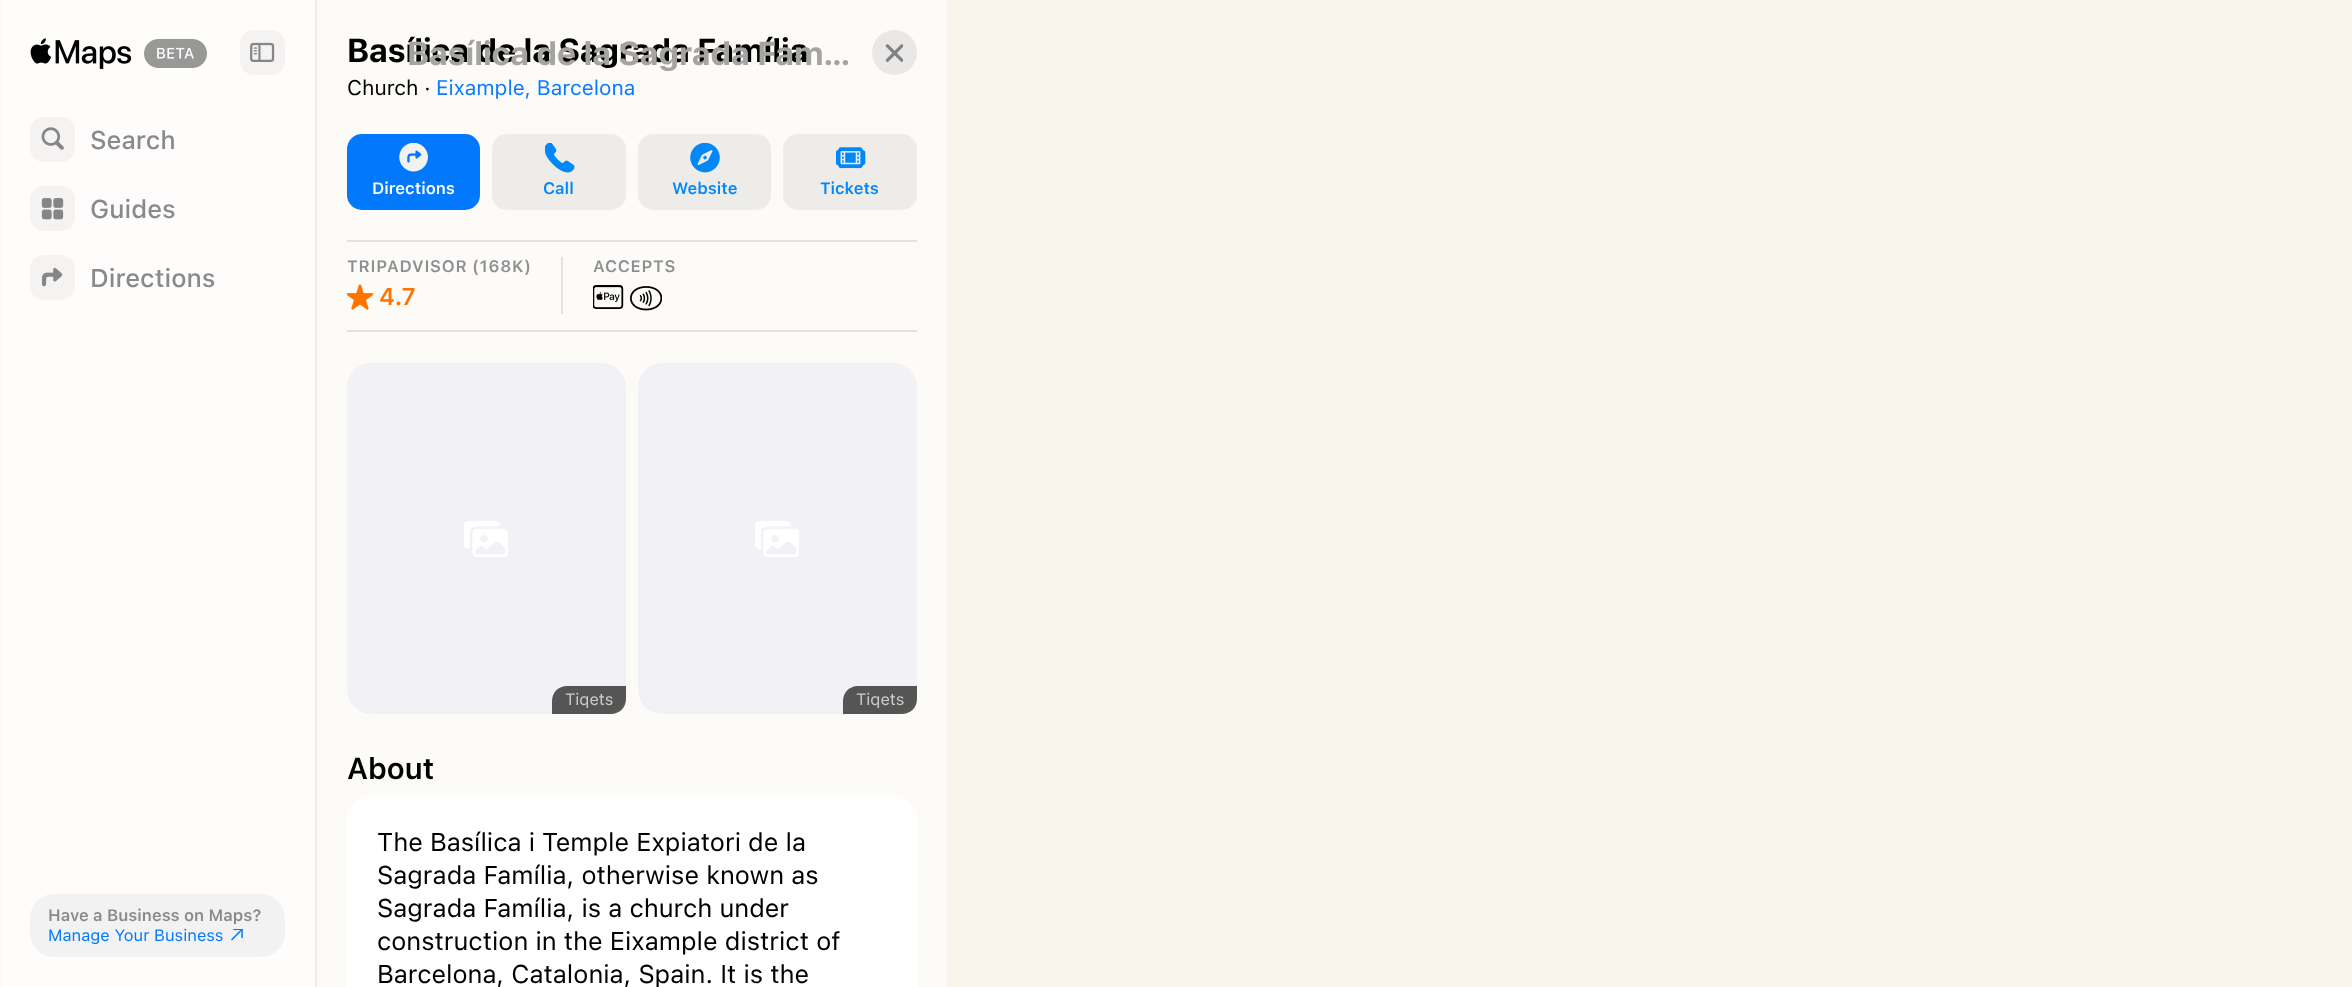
<svg xmlns="http://www.w3.org/2000/svg" width="2352" height="987" viewBox="0 0 2352 987">
  <rect width="100%" height="100%" fill="#f9f9f9"/>
  <rect x="947" y="0" width="1405" height="987" fill="#f9f5ed"/>
  <rect x="2" y="0" width="313" height="987" fill="#fefdfb"/>
  <rect x="315" y="0" width="2" height="987" fill="#eeeded"/>
  <image x="30" y="38" width="102" height="31" href="img1.png"/>
  <image x="144" y="39" width="63" height="29" href="img2.png"/>
  <rect x="240" y="30" width="45" height="45" rx="14" fill="#f4f3f1"/>
  <image x="250" y="42" width="25" height="20" href="img3.png"/>
  <rect x="30" y="117" width="45" height="45" rx="14" fill="#f4f3f1"/>
  <image x="41" y="127" width="23" height="23" href="img4.png"/>
  <text x="90" y="149" font-family="SF" font-size="25.5" font-weight="500" fill="#8a898d">Search</text>
  <rect x="30" y="186" width="45" height="45" rx="14" fill="#f4f3f1"/>
  <image x="41" y="198" width="23" height="22" href="img5.png"/>
  <text x="90" y="218" font-family="SF" font-size="25.5" font-weight="500" fill="#8a898d">Guides</text>
  <rect x="30" y="255" width="45" height="45" rx="14" fill="#f4f3f1"/>
  <image x="42" y="267" width="21" height="20" href="img6.png"/>
  <text x="90" y="287" font-family="SF" font-size="25.5" font-weight="500" fill="#8a898d">Directions</text>
  <rect x="30" y="894" width="255" height="63" rx="24" fill="#f3f2f2"/>
  <text x="48" y="921" font-family="SF" font-size="16.5" font-weight="600" fill="#8a898d">Have a Business on Maps?</text>
  <text x="48" y="941" font-family="SF" font-size="16.5" fill="#007aff">Manage Your Business</text>
  <image x="231" y="929" width="12" height="12" href="img7.png"/>
  <rect x="317" y="0" width="630" height="987" fill="#fdfbf8"/>
  <circle cx="894.5" cy="52.5" r="22.5" fill="#eae8e6"/>
  <image x="885" y="44" width="18" height="18" href="img8.png"/>
  <text x="347" y="62" font-family="SF" font-size="33" font-weight="bold" fill="#000000">Basílica de la Sagrada Família</text>
  <text x="347" y="95" font-family="SF" font-size="21" fill="#000000">Church ·</text>
  <text x="436" y="95" font-family="SF" font-size="21" fill="#0a7bff">Eixample, Barcelona</text>
  <rect x="347" y="134" width="133" height="76" rx="15" fill="#0278fc"/>
  <image x="399" y="143" width="29" height="29" href="img9.png"/>
  <text x="372" y="194" font-family="SF" font-size="16.5" font-weight="600" fill="#ffffff">Directions</text>
  <rect x="492" y="134" width="134" height="76" rx="15" fill="#eeece9"/>
  <image x="545" y="143" width="30" height="30" href="img10.png"/>
  <text x="543" y="194" font-family="SF" font-size="16.5" font-weight="600" fill="#0088fa">Call</text>
  <rect x="638" y="134" width="133" height="76" rx="15" fill="#eeece9"/>
  <image x="690" y="143" width="30" height="30" href="img11.png"/>
  <text x="672" y="194" font-family="SF" font-size="16.5" font-weight="600" fill="#0088fa">Website</text>
  <rect x="783" y="134" width="134" height="76" rx="15" fill="#eeece9"/>
  <image x="836" y="147" width="30" height="22" href="img12.png"/>
  <text x="820" y="194" font-family="SF" font-size="16.5" font-weight="600" fill="#0088fa">Tickets</text>
  <rect x="347" y="240" width="570" height="2" fill="#e4e2df"/>
  <rect x="561" y="257" width="2" height="57" fill="#e4e2df"/>
  <text x="347" y="272" font-family="SF" font-size="16.5" font-weight="600" letter-spacing="0.75" fill="#8e8e93">TRIPADVISOR</text>
  <text x="472" y="272" font-family="SF" font-size="16.5" font-weight="600" letter-spacing="0.75" fill="#8e8e93">(168K)</text>
  <image x="347" y="284" width="27" height="26" href="img13.png"/>
  <text x="379" y="305" font-family="SF" font-size="24" font-weight="600" fill="#ff7300">4.7</text>
  <text x="593" y="272" font-family="SF" font-size="16.5" font-weight="600" letter-spacing="0.75" fill="#8e8e93">ACCEPTS</text>
  <image x="593" y="285" width="31" height="24" href="img14.png"/>
  <image x="630" y="286" width="32" height="25" href="img15.png"/>
  <rect x="347" y="330" width="570" height="2" fill="#e4e2df"/>
  <rect x="347" y="363" width="279" height="351" rx="24" fill="#f2f2f6"/>
  <image x="464" y="521" width="44" height="36" href="img16.png"/>
  <path d="M567 686H626V699C626 707.5 619.5 714 611 714H552V701C552 692.5 558.5 686 567 686Z" fill="#000000" fill-opacity="0.65"/>
  <text x="565" y="705" font-family="SF" font-size="16.5" fill="#cccccc">Tiqets</text>
  <rect x="638" y="363" width="279" height="351" rx="24" fill="#f2f2f6"/>
  <image x="755" y="521" width="44" height="36" href="img16.png"/>
  <path d="M858 686H917V699C917 707.5 910.5 714 902 714H843V701C843 692.5 849.5 686 858 686Z" fill="#000000" fill-opacity="0.65"/>
  <text x="856" y="705" font-family="SF" font-size="16.5" fill="#cccccc">Tiqets</text>
  <text x="347" y="779" font-family="'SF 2'" font-size="30" font-weight="600" fill="#000000">About</text>
  <path d="M371 795H893C906.5 795 917 805.5 917 819V987H347V819C347 805.5 357.5 795 371 795Z" fill="#ffffff"/>
  <text x="377" y="851" font-family="SF" font-size="25.5" fill="#000000">The Basílica i Temple Expiatori de la</text>
  <text x="377" y="884" font-family="SF" font-size="25.5" fill="#000000">Sagrada Família, otherwise known as</text>
  <text x="377" y="917" font-family="SF" font-size="25.5" fill="#000000">Sagrada Família, is a church under</text>
  <text x="377" y="950" font-family="SF" font-size="25.5" fill="#000000">construction in the Eixample district of</text>
  <text x="377" y="983" font-family="SF" font-size="25.5" fill="#000000">Barcelona, Catalonia, Spain. It is the</text>
  <text x="407" y="65" font-family="SF" font-size="33" font-weight="bold" fill="#a5a4a2">Basílica de la Sagrada Fam…</text>
</svg>
